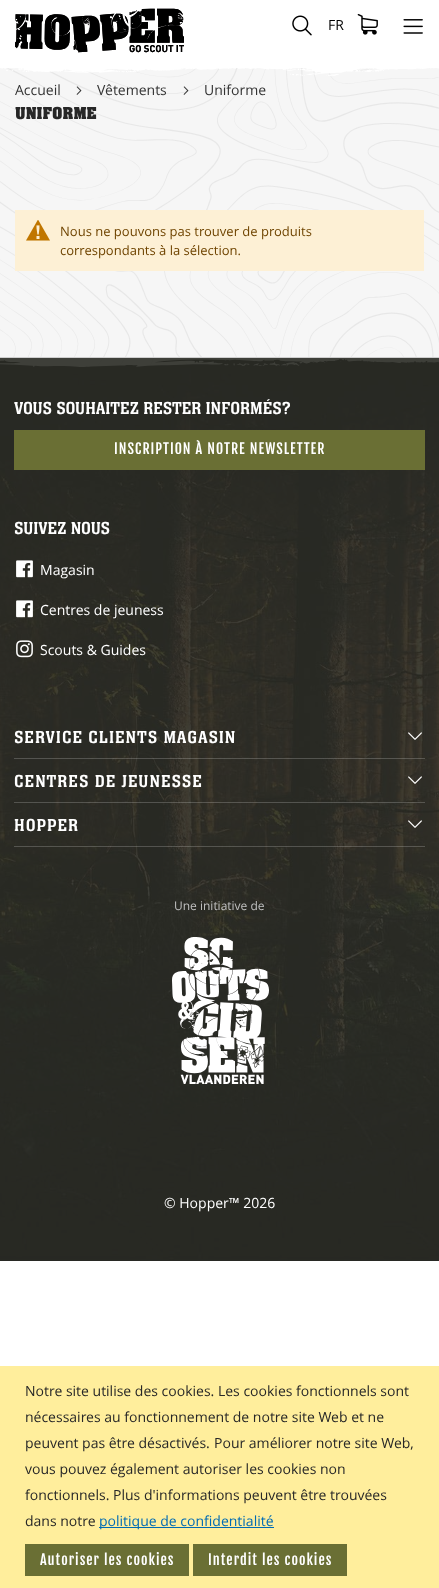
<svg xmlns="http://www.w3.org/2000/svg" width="439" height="1588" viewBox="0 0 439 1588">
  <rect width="100%" height="100%" fill="#ffffff"/>
  <image x="15" y="8" width="169" height="45" href="img1.png"/>
  <image x="292" y="15" width="20" height="21" href="img2.png"/>
  <image x="403" y="19" width="20" height="15" href="img3.png"/>
  <text x="328" y="30" font-family="'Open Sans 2'" font-size="14" fill="#000000">FR</text>
  <image x="357" y="13" width="21" height="22" href="img4.png"/>
  <rect x="0" y="68" width="439" height="299" fill="#f6f6f6"/>
  <image x="0" y="68" width="439" height="299" href="img6.png"/>
  <image x="0" y="61" width="439" height="15" href="img5.png"/>
  <text x="15" y="95" font-family="Open Sans" font-size="14" fill="#343434">Accueil</text>
  <image x="76" y="86" width="6" height="9" href="img7.png"/>
  <text x="97" y="95" font-family="Open Sans" font-size="14" fill="#343434">Vêtements</text>
  <image x="183" y="86" width="6" height="9" href="img8.png"/>
  <text x="204" y="95" font-family="Open Sans" font-size="14" fill="#343434">Uniforme</text>
  <text x="15" y="119" font-family="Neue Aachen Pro" font-size="18" font-weight="bold" fill="#272727">UNIFORME</text>
  <rect x="15" y="210" width="409" height="61" fill="#fdf0d5"/>
  <image x="26" y="220" width="24" height="21" href="img9.png"/>
  <text x="60" y="236" font-family="'Open Sans 2'" font-size="13" fill="#6f4400">Nous ne pouvons pas trouver de produits</text>
  <text x="60" y="255" font-family="'Open Sans 2'" font-size="13" fill="#6f4400">correspondants à la sélection.</text>
  <image x="0" y="359" width="439" height="902" href="img10.png"/>
  <rect x="0" y="358" width="439" height="903" fill="#2a2b25" fill-opacity="0.9"/>
  <rect x="0" y="357" width="439" height="1" fill="#cecece"/>
  <text x="14" y="414" font-family="Neue Aachen Pro" font-size="18" fill="#ffffff">VOUS SOUHAITEZ RESTER INFORMÉS?</text>
  <rect x="14" y="430" width="411" height="40" fill="#6a6f34"/>
  <text x="114" y="454" font-family="Fjalla One" font-size="14" letter-spacing="1" fill="#ffffff">INSCRIPTION À NOTRE NEWSLETTER</text>
  <text x="14" y="534" font-family="Neue Aachen Pro" font-size="18" fill="#ffffff">SUIVEZ NOUS</text>
  <image x="16" y="560" width="17" height="18" href="img11.png"/>
  <text x="40" y="575" font-family="Open Sans" font-size="14" fill="#ffffff">Magasin</text>
  <image x="16" y="600" width="17" height="18" href="img12.png"/>
  <text x="40" y="615" font-family="Open Sans" font-size="14" fill="#ffffff">Centres de jeuness</text>
  <image x="16" y="640" width="17" height="18" href="img13.png"/>
  <text x="40" y="655" font-family="Open Sans" font-size="14" fill="#ffffff">Scouts &amp; Guides</text>
  <rect x="14" y="758" width="411" height="1" fill="#ffffff" fill-opacity="0.2"/>
  <text x="14" y="743" font-family="Neue Aachen Pro" font-size="18" letter-spacing="1" fill="#ffffff">SERVICE CLIENTS MAGASIN</text>
  <image x="408" y="732" width="14" height="8" href="img14.png"/>
  <rect x="14" y="802" width="411" height="1" fill="#ffffff" fill-opacity="0.2"/>
  <text x="14" y="787" font-family="Neue Aachen Pro" font-size="18" letter-spacing="1" fill="#ffffff">CENTRES DE JEUNESSE</text>
  <image x="408" y="776" width="14" height="8" href="img15.png"/>
  <rect x="14" y="846" width="411" height="1" fill="#ffffff" fill-opacity="0.2"/>
  <text x="14" y="831" font-family="Neue Aachen Pro" font-size="18" letter-spacing="1" fill="#ffffff">HOPPER</text>
  <image x="408" y="820" width="14" height="8" href="img16.png"/>
  <text x="174" y="910" font-family="Open Sans" font-size="12" fill="#c0c0c0">Une initiative de</text>
  <image x="172" y="937" width="97" height="147" href="img17.png"/>
  <text x="164" y="1208" font-family="'Open Sans 2'" font-size="14" fill="#ffffff">© Hopper™ 2026</text>
  <rect x="0" y="1366" width="439" height="222" fill="#ffee9c"/>
  <text x="25" y="1396" font-family="Open Sans" font-size="14" fill="#272727">Notre site utilise des cookies. Les cookies fonctionnels sont</text>
  <text x="25" y="1422" font-family="Open Sans" font-size="14" fill="#272727">nécessaires au fonctionnement de notre site Web et ne</text>
  <text x="25" y="1448" font-family="Open Sans" font-size="14" fill="#272727">peuvent pas être désactivés.</text>
  <text x="214" y="1448" font-family="Open Sans" font-size="14" fill="#272727">Pour améliorer notre site Web,</text>
  <text x="25" y="1474" font-family="Open Sans" font-size="14" fill="#272727">vous pouvez également autoriser les cookies non</text>
  <text x="25" y="1500" font-family="Open Sans" font-size="14" fill="#272727">fonctionnels.</text>
  <text x="113" y="1500" font-family="Open Sans" font-size="14" fill="#272727">Plus d'informations peuvent être trouvées</text>
  <text x="25" y="1526" font-family="Open Sans" font-size="14" fill="#272727">dans notre</text>
  <rect x="99" y="1527" width="175" height="1" fill="#006bb4"/>
  <text x="99" y="1526" font-family="Open Sans" font-size="14" fill="#006bb4">politique de confidentialité</text>
  <rect x="25" y="1544" width="164" height="32" fill="#6a6f34"/>
  <text x="40" y="1565" font-family="Fjalla One" font-size="14" letter-spacing="1" fill="#ffffff">Autoriser les cookies</text>
  <rect x="193" y="1544" width="154" height="32" fill="#6a6f34"/>
  <text x="208" y="1565" font-family="Fjalla One" font-size="14" letter-spacing="1" fill="#ffffff">Interdit les cookies</text>
</svg>
